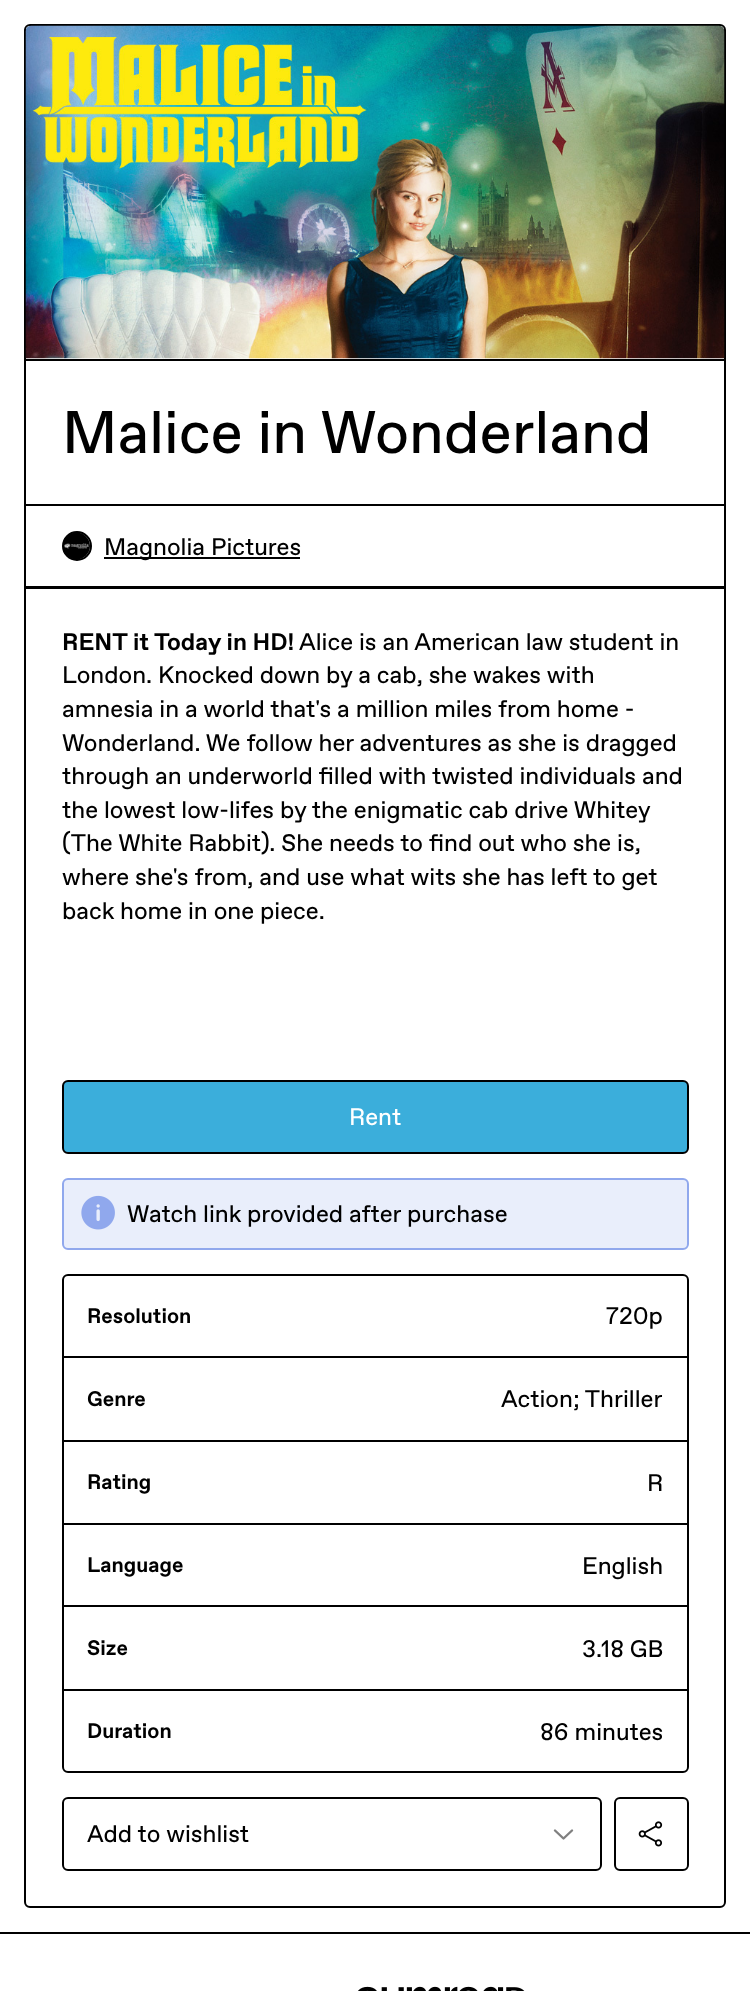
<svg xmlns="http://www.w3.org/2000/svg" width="750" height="1991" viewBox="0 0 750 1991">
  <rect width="100%" height="100%" fill="#ffffff"/>
  <rect x="0" y="1932" width="750" height="2" fill="#000000"/>
  <rect x="25" y="25" width="700" height="1882" rx="5" fill="none" stroke="#000000" stroke-width="2"/>
  <rect x="26" y="359" width="699" height="2" fill="#000000"/>
  <image x="25" y="25" width="700" height="334" href="img1.png"/>
  <text x="62" y="453" font-family="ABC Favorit" font-size="60" fill="#000000">Malice in Wonderland</text>
  <rect x="25" y="505" width="700" height="82" fill="none" stroke="#000000" stroke-width="2"/>
  <circle cx="77" cy="546" r="14" fill="none" stroke="#000000" stroke-width="2"/>
  <image x="64" y="533" width="26" height="26" href="img2.png"/>
  <rect x="104" y="557" width="196" height="2" fill="#000000"/>
  <text x="104" y="555" font-family="ABC Favorit" font-size="24" fill="#000000">Magnolia Pictures</text>
  <rect x="26" y="588" width="699" height="1" fill="#000000"/>
  <text x="62" y="650" font-family="ABC Favorit" font-size="24" font-weight="bold" fill="#000000">RENT it Today in HD!</text>
  <text x="299" y="650" font-family="ABC Favorit" font-size="24" fill="#000000">Alice is an American law student in</text>
  <text x="62" y="683" font-family="ABC Favorit" font-size="24" fill="#000000">London. Knocked down by a cab, she wakes with</text>
  <text x="62" y="717" font-family="ABC Favorit" font-size="24" fill="#000000">amnesia in a world that's a million miles from home -</text>
  <text x="62" y="751" font-family="ABC Favorit" font-size="24" fill="#000000">Wonderland. We follow her adventures as she is dragged</text>
  <text x="62" y="784" font-family="ABC Favorit" font-size="24" fill="#000000">through an underworld filled with twisted individuals and</text>
  <text x="62" y="818" font-family="ABC Favorit" font-size="24" fill="#000000">the lowest low-lifes by the enigmatic cab drive Whitey</text>
  <text x="62" y="851" font-family="ABC Favorit" font-size="24" fill="#000000">(The White Rabbit). She needs to find out who she is,</text>
  <text x="62" y="885" font-family="ABC Favorit" font-size="24" fill="#000000">where she's from, and use what wits she has left to get</text>
  <text x="62" y="919" font-family="ABC Favorit" font-size="24" fill="#000000">back home in one piece.</text>
  <rect x="63" y="1081" width="625" height="72" rx="5" fill="#3baedb" stroke="#000000" stroke-width="2"/>
  <text x="349" y="1125" font-family="ABC Favorit" font-size="24" fill="#ffffff">Rent</text>
  <rect x="63" y="1179" width="625" height="70" rx="5" fill="#e9eefb" stroke="#90a8ed" stroke-width="2"/>
  <image x="81" y="1195" width="34" height="35" href="img3.png"/>
  <text x="127" y="1222" font-family="ABC Favorit" font-size="24" fill="#000000">Watch link provided after purchase</text>
  <rect x="63" y="1275" width="625" height="497" rx="5" fill="none" stroke="#000000" stroke-width="2"/>
  <rect x="63" y="1356" width="624" height="2" fill="#000000"/>
  <text x="87" y="1323" font-family="ABC Favorit" font-size="21" font-weight="bold" fill="#000000">Resolution</text>
  <text x="606" y="1324" font-family="ABC Favorit" font-size="24" fill="#000000">720p</text>
  <rect x="63" y="1440" width="624" height="2" fill="#000000"/>
  <text x="87" y="1406" font-family="ABC Favorit" font-size="21" font-weight="bold" fill="#000000">Genre</text>
  <text x="501" y="1407" font-family="ABC Favorit" font-size="24" fill="#000000">Action; Thriller</text>
  <rect x="63" y="1523" width="624" height="2" fill="#000000"/>
  <text x="87" y="1489" font-family="ABC Favorit" font-size="21" font-weight="bold" fill="#000000">Rating</text>
  <text x="647" y="1491" font-family="ABC Favorit" font-size="24" fill="#000000">R</text>
  <rect x="63" y="1605" width="624" height="2" fill="#000000"/>
  <text x="87" y="1572" font-family="ABC Favorit" font-size="21" font-weight="bold" fill="#000000">Language</text>
  <text x="582" y="1574" font-family="ABC Favorit" font-size="24" fill="#000000">English</text>
  <rect x="63" y="1689" width="624" height="2" fill="#000000"/>
  <text x="87" y="1655" font-family="ABC Favorit" font-size="21" font-weight="bold" fill="#000000">Size</text>
  <text x="582" y="1657" font-family="ABC Favorit" font-size="24" fill="#000000">3.18 GB</text>
  <text x="87" y="1738" font-family="ABC Favorit" font-size="21" font-weight="bold" fill="#000000">Duration</text>
  <text x="540" y="1740" font-family="ABC Favorit" font-size="24" fill="#000000">86 minutes</text>
  <rect x="63" y="1798" width="538" height="72" rx="5" fill="none" stroke="#000000" stroke-width="2"/>
  <text x="87" y="1842" font-family="ABC Favorit" font-size="24" fill="#000000">Add to wishlist</text>
  <path d="M572 1830.5L563.5 1838.5L555 1830.5" fill="none" stroke="#808080" stroke-width="2.4" stroke-linecap="round" stroke-linejoin="round"/>
  <rect x="615" y="1798" width="73" height="72" rx="5" fill="none" stroke="#000000" stroke-width="2"/>
  <image x="638" y="1821" width="25" height="26" href="img4.png"/>
  <image x="358" y="1986" width="167" height="5" href="img5.png"/>
</svg>
